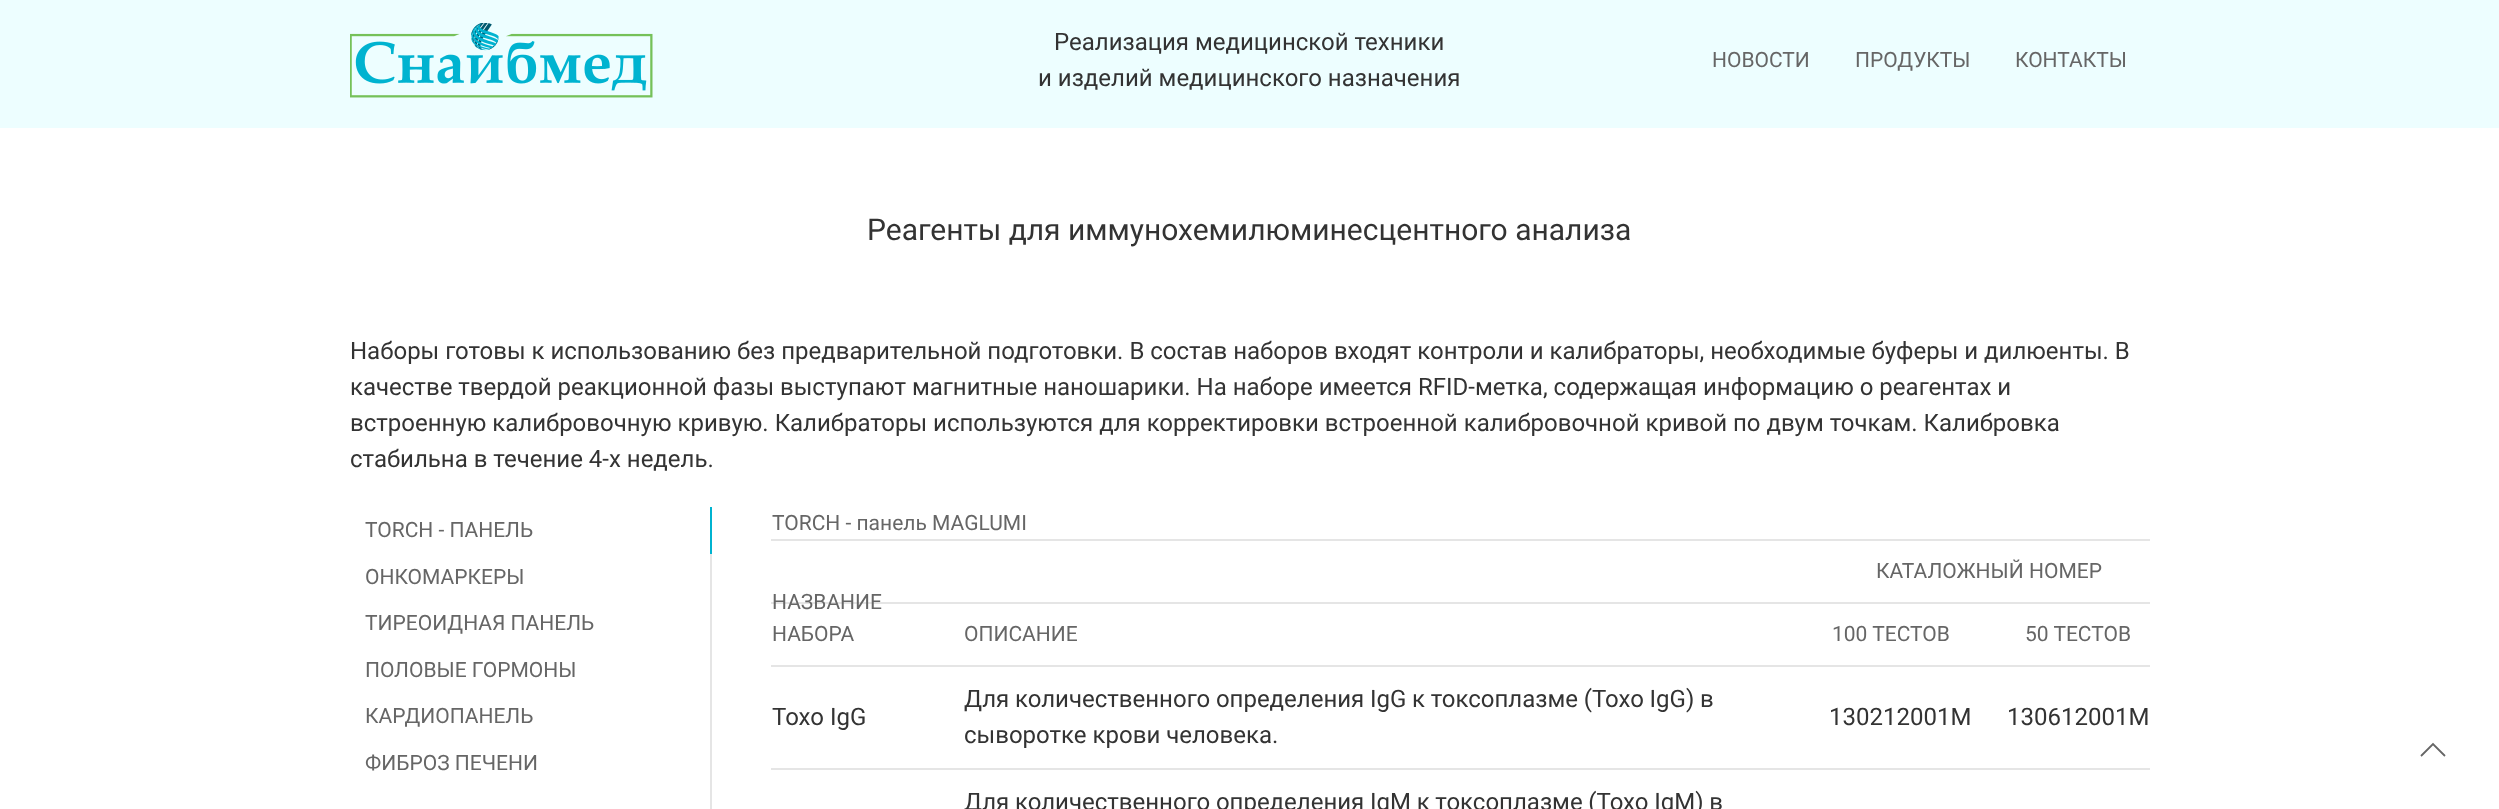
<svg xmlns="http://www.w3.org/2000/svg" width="2499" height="809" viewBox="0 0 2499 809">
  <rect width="100%" height="100%" fill="#ffffff"/>
  <rect x="0" y="0" width="2499" height="128" fill="#edfeff"/>
  <image x="350" y="23" width="303" height="75" href="img1.png"/>
  <text x="1054" y="50" font-family="Roboto" font-size="24" fill="#333333">Реализация медицинской техники</text>
  <text x="1038" y="86" font-family="Roboto" font-size="24" fill="#333333">и изделий медицинского назначения</text>
  <text x="1712" y="67" font-family="Roboto" font-size="21" fill="#666666">НОВОСТИ</text>
  <text x="1855" y="67" font-family="Roboto" font-size="21" fill="#666666">ПРОДУКТЫ</text>
  <text x="2015" y="67" font-family="Roboto" font-size="21" fill="#666666">КОНТАКТЫ</text>
  <text x="867" y="240" font-family="Roboto" font-size="30" fill="#333333">Реагенты для иммунохемилюминесцентного анализа</text>
  <text x="350" y="359" font-family="Roboto" font-size="24" fill="#333333">Наборы готовы к использованию без предварительной подготовки. В состав наборов входят контроли и калибраторы, необходимые буферы и дилюенты. В</text>
  <text x="350" y="395" font-family="Roboto" font-size="24" fill="#333333">качестве твердой реакционной фазы выступают магнитные наношарики. На наборе имеется RFID-метка, содержащая информацию о реагентах и</text>
  <text x="350" y="431" font-family="Roboto" font-size="24" fill="#333333">встроенную калибровочную кривую. Калибраторы используются для корректировки встроенной калибровочной кривой по двум точкам. Калибровка</text>
  <text x="350" y="467" font-family="Roboto" font-size="24" fill="#333333">стабильна в течение 4-х недель.</text>
  <rect x="710" y="507" width="2" height="47" fill="#00b3d0"/>
  <text x="365" y="537" font-family="Roboto" font-size="21" fill="#666666">TORCH - ПАНЕЛЬ</text>
  <text x="365" y="584" font-family="Roboto" font-size="21" fill="#666666">ОНКОМАРКЕРЫ</text>
  <rect x="710" y="554" width="2" height="255" fill="#e5e5e5"/>
  <text x="365" y="630" font-family="Roboto" font-size="21" fill="#666666">ТИРЕОИДНАЯ ПАНЕЛЬ</text>
  <text x="365" y="677" font-family="Roboto" font-size="21" fill="#666666">ПОЛОВЫЕ ГОРМОНЫ</text>
  <text x="365" y="723" font-family="Roboto" font-size="21" fill="#666666">КАРДИОПАНЕЛЬ</text>
  <text x="365" y="770" font-family="Roboto" font-size="21" fill="#666666">ФИБРОЗ ПЕЧЕНИ</text>
  <text x="772" y="530" font-family="Roboto" font-size="21" fill="#666666">TORCH - панель MAGLUMI</text>
  <rect x="771" y="539" width="1379" height="2" fill="#e5e5e5"/>
  <text x="1876" y="578" font-family="Roboto" font-size="21" fill="#666666">КАТАЛОЖНЫЙ НОМЕР</text>
  <rect x="771" y="602" width="1379" height="2" fill="#e5e5e5"/>
  <text x="772" y="609" font-family="Roboto" font-size="21" fill="#666666">НАЗВАНИЕ</text>
  <text x="772" y="641" font-family="Roboto" font-size="21" fill="#666666">НАБОРА</text>
  <text x="964" y="641" font-family="Roboto" font-size="21" fill="#666666">ОПИСАНИЕ</text>
  <text x="1832" y="641" font-family="Roboto" font-size="21" fill="#666666">100 ТЕСТОВ</text>
  <text x="2025" y="641" font-family="Roboto" font-size="21" fill="#666666">50 ТЕСТОВ</text>
  <rect x="771" y="665" width="1379" height="2" fill="#e5e5e5"/>
  <text x="772" y="725" font-family="Roboto" font-size="24" fill="#333333">Toxo IgG</text>
  <text x="964" y="707" word-spacing="-0.25" font-family="Roboto" font-size="24" fill="#333333">Для количественного определения IgG к токсоплазме (Toxo IgG) в</text>
  <text x="964" y="743" font-family="Roboto" font-size="24" fill="#333333">сыворотке крови человека.</text>
  <text x="1829" y="725" font-family="Roboto" font-size="24" fill="#333333">130212001M</text>
  <text x="2007" y="725" font-family="Roboto" font-size="24" fill="#333333">130612001M</text>
  <rect x="771" y="768" width="1379" height="2" fill="#e5e5e5"/>
  <text x="964" y="810" word-spacing="-0.25" font-family="Roboto" font-size="24" fill="#333333">Для количественного определения IgM к токсоплазме (Toxo IgM) в</text>
  <path d="M2421 756L2433 744L2445 756" fill="none" stroke="#666666" stroke-width="1.8"/>
</svg>
